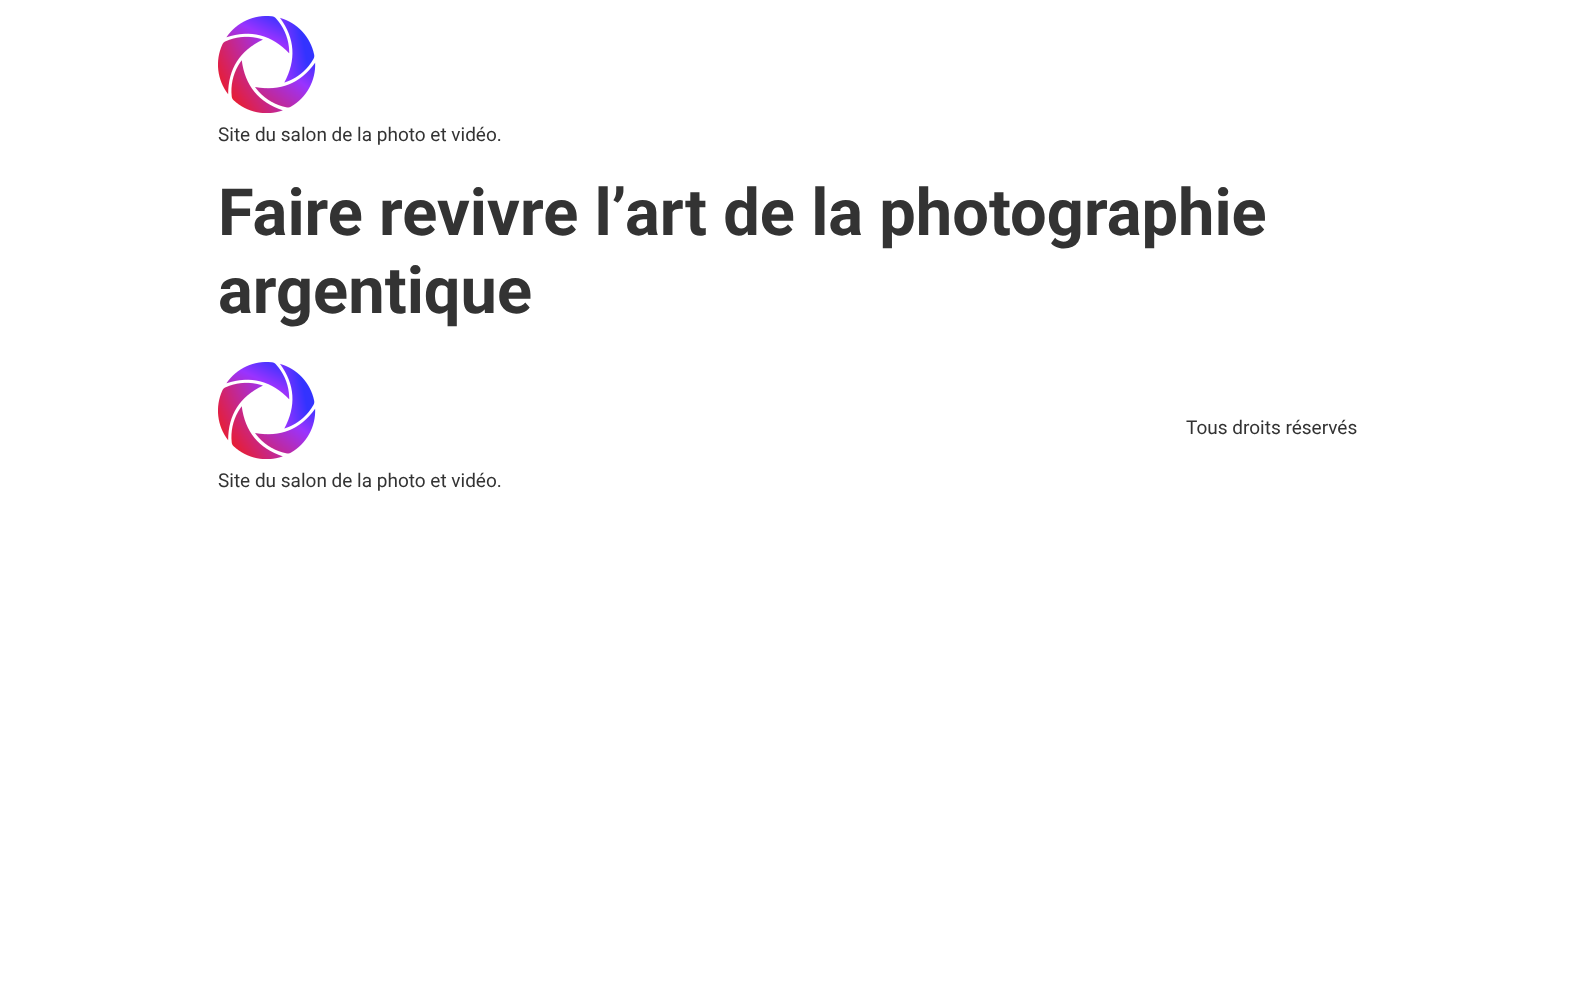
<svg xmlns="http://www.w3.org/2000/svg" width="1575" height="993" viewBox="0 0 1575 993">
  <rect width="100%" height="100%" fill="#ffffff"/>
  <image x="218" y="16" width="98" height="97" href="img1.png"/>
  <text x="218" y="141" font-family="Roboto" font-size="19" fill="#333333">Site du salon de la photo et vidéo.</text>
  <text x="218" y="235" font-family="Roboto" font-size="65" font-weight="bold" fill="#333333">Faire revivre l’art de la photographie</text>
  <text x="218" y="313" font-family="Roboto" font-size="65" font-weight="bold" fill="#333333">argentique</text>
  <text x="1186" y="434" font-family="Roboto" font-size="19" fill="#333333">Tous droits réservés</text>
  <image x="218" y="362" width="98" height="97" href="img2.png"/>
  <text x="218" y="487" font-family="Roboto" font-size="19" fill="#333333">Site du salon de la photo et vidéo.</text>
</svg>
